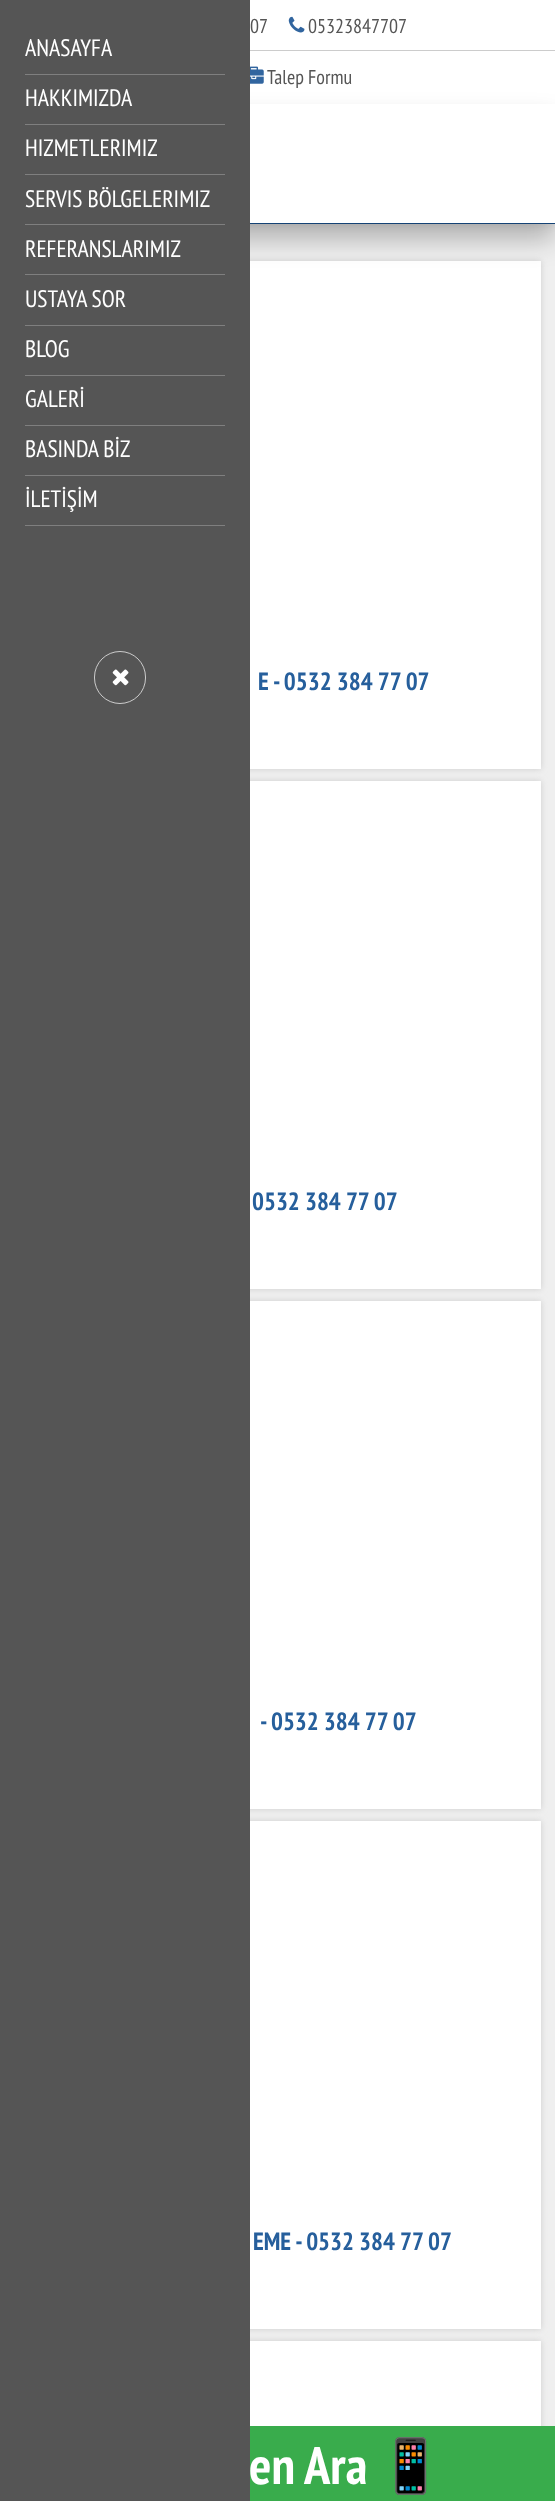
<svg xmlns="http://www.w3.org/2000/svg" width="555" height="2501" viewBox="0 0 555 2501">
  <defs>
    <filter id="blur1" x="-50%" y="-200%" width="200%" height="500%"><feGaussianBlur stdDeviation="5"/></filter>
    <filter id="blur2" x="-50%" y="-200%" width="200%" height="500%"><feGaussianBlur stdDeviation="3"/></filter>
    <clipPath id="clip1"><path d="M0 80H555V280H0ZM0 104H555V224H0Z" clip-rule="evenodd"/></clipPath>
    <filter id="blur3" x="-50%" y="-200%" width="200%" height="500%"><feGaussianBlur stdDeviation="13"/></filter>
  </defs>
  <rect width="100%" height="100%" fill="#efefef"/>
  <rect x="0" y="0" width="555" height="224" fill="#000000" fill-opacity="0.1" filter="url(#blur1)"/>
  <rect x="250" y="0" width="305" height="223" fill="#ffffff"/>
  <image x="250" y="66" width="14" height="18" href="img3.png"/>
  <rect x="14" y="261" width="527" height="508" fill="#cccccc" filter="url(#blur2)"/>
  <rect x="250" y="261" width="291" height="508" fill="#ffffff"/>
  <g clip-path="url(#clip1)">
    <rect x="0" y="120" width="555" height="120" fill="#000000" fill-opacity="0.25" filter="url(#blur3)"/>
  </g>
  <rect x="14" y="781" width="527" height="508" fill="#cccccc" filter="url(#blur2)"/>
  <rect x="14" y="1301" width="527" height="508" fill="#cccccc" filter="url(#blur2)"/>
  <rect x="14" y="1821" width="527" height="508" fill="#cccccc" filter="url(#blur2)"/>
  <rect x="14" y="2341" width="527" height="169" fill="#cccccc" filter="url(#blur2)"/>
  <rect x="0" y="0" width="250" height="2501" fill="#555555"/>
  <rect x="25" y="74" width="200" height="1" fill="#7f7f7f"/>
  <text x="25" y="56" font-family="PT Sans Narrow" font-size="23.75" fill="#ffffff">ANASAYFA</text>
  <rect x="25" y="124" width="200" height="1" fill="#7f7f7f"/>
  <text x="25" y="106" font-family="PT Sans Narrow" font-size="23.75" fill="#ffffff">HAKKIMIZDA</text>
  <rect x="25" y="174" width="200" height="1" fill="#7f7f7f"/>
  <text x="25" y="156" font-family="PT Sans Narrow" font-size="23.75" fill="#ffffff">HIZMETLERIMIZ</text>
  <rect x="25" y="224" width="200" height="1" fill="#7f7f7f"/>
  <text x="25" y="207" font-family="PT Sans Narrow" font-size="23.75" fill="#ffffff">SERVIS BÖLGELERIMIZ</text>
  <rect x="25" y="274" width="200" height="1" fill="#7f7f7f"/>
  <text x="25" y="257" font-family="PT Sans Narrow" font-size="23.75" fill="#ffffff">REFERANSLARIMIZ</text>
  <rect x="25" y="325" width="200" height="1" fill="#7f7f7f"/>
  <text x="25" y="307" font-family="PT Sans Narrow" font-size="23.75" fill="#ffffff">USTAYA SOR</text>
  <rect x="25" y="375" width="200" height="1" fill="#7f7f7f"/>
  <text x="25" y="357" font-family="PT Sans Narrow" font-size="23.75" fill="#ffffff">BLOG</text>
  <rect x="25" y="425" width="200" height="1" fill="#7f7f7f"/>
  <text x="25" y="407" font-family="PT Sans Narrow" font-size="23.75" fill="#ffffff">GALERİ</text>
  <rect x="25" y="475" width="200" height="1" fill="#7f7f7f"/>
  <text x="25" y="457" font-family="PT Sans Narrow" font-size="23.75" fill="#ffffff">BASINDA BİZ</text>
  <rect x="25" y="525" width="200" height="1" fill="#7f7f7f"/>
  <text x="25" y="507" font-family="PT Sans Narrow" font-size="23.75" fill="#ffffff">İLETİŞİM</text>
  <rect x="94.5" y="651.5" width="51" height="52" rx="25.5" fill="none" stroke="#cccccc"/>
  <image x="112" y="669" width="17" height="17" href="img1.png"/>
  <text x="250" y="33" font-family="PT Sans Narrow" font-size="20" fill="#555555">07</text>
  <image x="288" y="16" width="17" height="17" href="img2.png"/>
  <text x="308" y="33" font-family="PT Sans Narrow" font-size="20" fill="#555555">05323847707</text>
  <rect x="250" y="50" width="305" height="1" fill="#cccccc"/>
  <text x="267" y="84" font-family="PT Sans Narrow" font-size="20" fill="#555555">Talep Formu</text>
  <rect x="250" y="223" width="305" height="1" fill="#154375"/>
  <text x="258" y="690" font-family="PT Sans Narrow" font-size="25" font-weight="bold" fill="#265f9c">E - 0532 384 77 07</text>
  <rect x="250" y="781" width="291" height="508" fill="#ffffff"/>
  <text x="252" y="1210" font-family="PT Sans Narrow" font-size="25" font-weight="bold" fill="#265f9c">0532 384 77 07</text>
  <rect x="250" y="1301" width="291" height="508" fill="#ffffff"/>
  <text x="260" y="1730" font-family="PT Sans Narrow" font-size="25" font-weight="bold" fill="#265f9c">- 0532 384 77 07</text>
  <rect x="250" y="1821" width="291" height="508" fill="#ffffff"/>
  <text x="253" y="2250" font-family="PT Sans Narrow" font-size="25" font-weight="bold" fill="#265f9c">EME - 0532 384 77 07</text>
  <rect x="250" y="2341" width="291" height="85" fill="#ffffff"/>
  <rect x="250" y="2426" width="305" height="75" fill="#39ac4c"/>
  <text x="249" y="2484" font-family="PT Sans Narrow" font-size="52.5" font-weight="bold" fill="#ffffff">en Ara</text>
  <text x="378" y="2484" font-family="Noto Color Emoji" font-size="52.5" font-weight="bold" fill="#ffffff">📱</text>
</svg>
